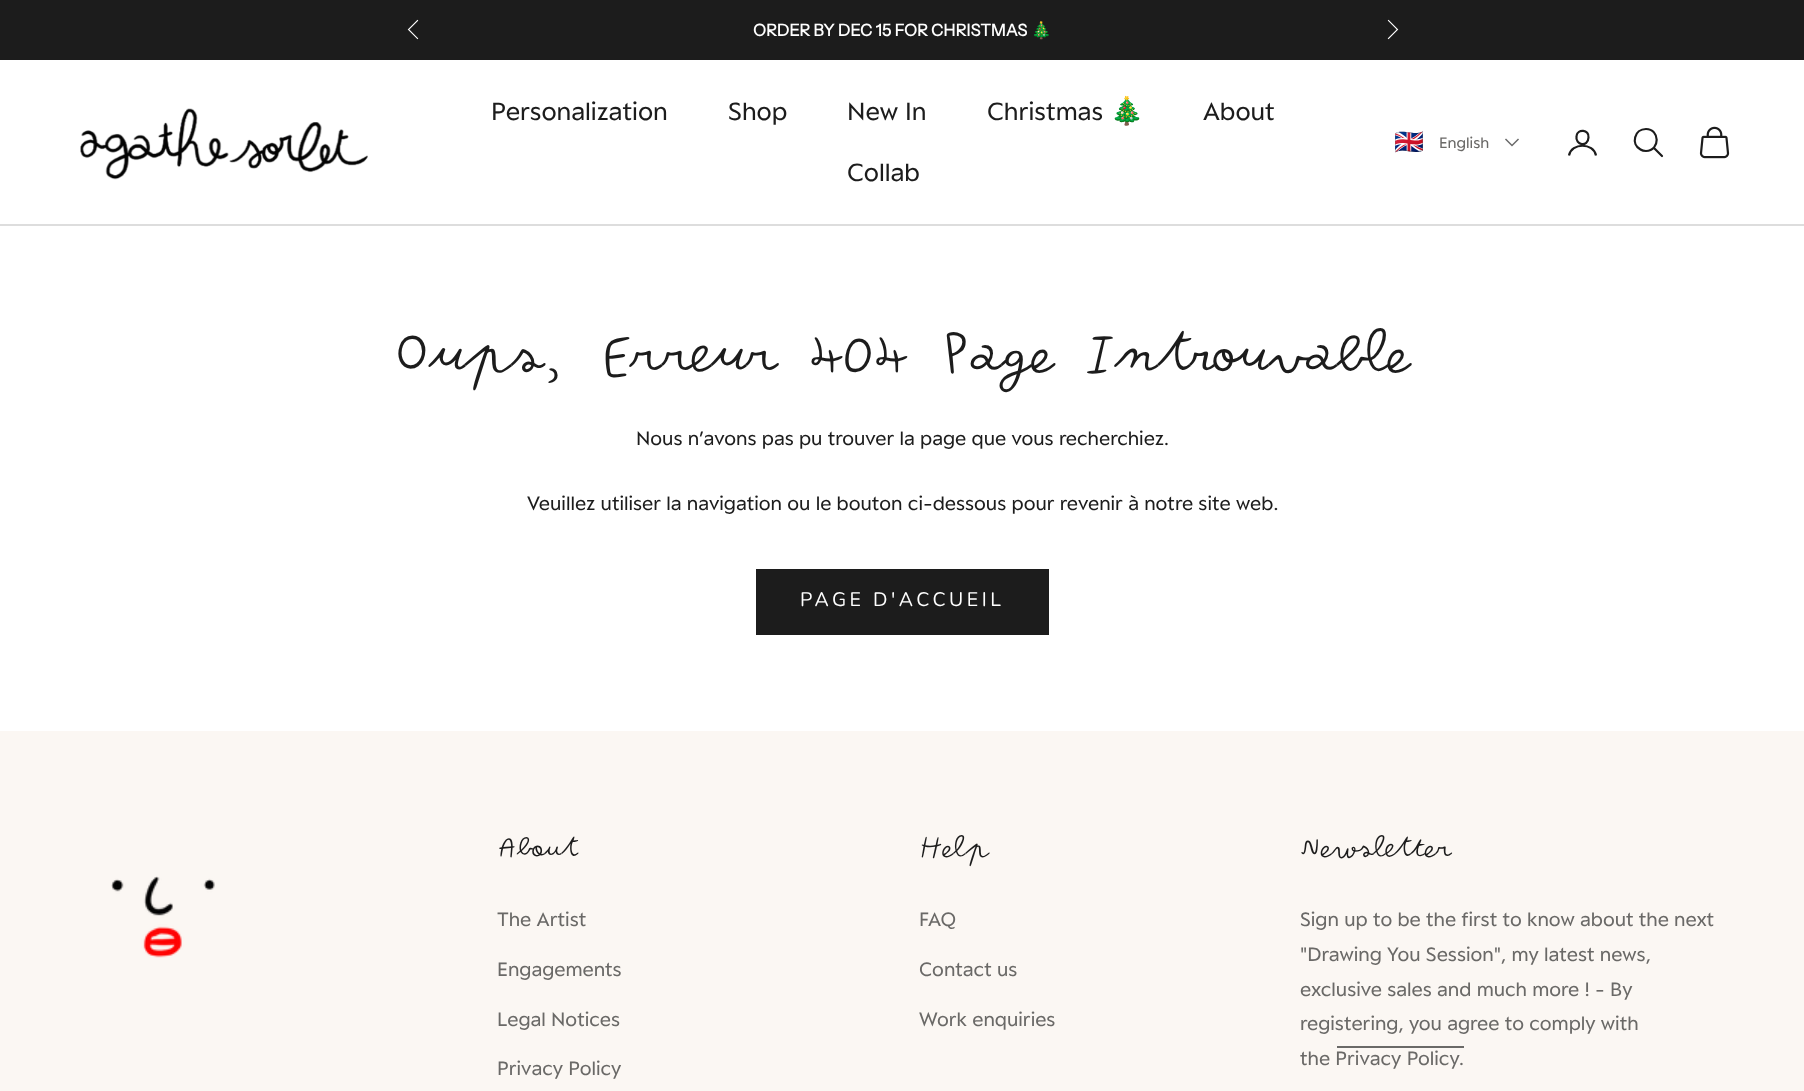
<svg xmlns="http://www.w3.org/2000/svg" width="1804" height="1091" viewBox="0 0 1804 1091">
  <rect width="100%" height="100%" fill="#ffffff"/>
  <rect x="0" y="0" width="1804" height="60" fill="#1c1c1c"/>
  <path d="M417.5 20.5L408.5 29.5L417.5 38.5" fill="none" stroke="#ffffff" stroke-width="1.1" stroke-linecap="square"/>
  <text x="753" y="36" font-family="Instrument Sans" font-size="16.5" font-weight="bold" fill="#ffffff">ORDER BY DEC 15 FOR CHRISTMAS</text>
  <text x="1031" y="36" font-family="Noto Color Emoji" font-size="16.5" font-weight="bold" fill="#ffffff">🎄</text>
  <path d="M1388.5 38.5L1397.5 29.5L1388.5 20.5" fill="none" stroke="#ffffff" stroke-width="1.1" stroke-linecap="square"/>
  <rect x="0" y="224" width="1804" height="2" fill="#dddddd"/>
  <image x="80" y="108" width="288" height="72" href="img1.png"/>
  <text x="491" y="120" font-family="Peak" font-size="27" fill="#1c1c1c">Personalization</text>
  <text x="728" y="120" font-family="Peak" font-size="27" fill="#1c1c1c">Shop</text>
  <text x="847" y="120" font-family="Peak" font-size="27" fill="#1c1c1c">New In</text>
  <text x="987" y="120" font-family="Peak" font-size="27" fill="#1c1c1c">Christmas</text>
  <text x="1110" y="120" font-family="Noto Color Emoji" font-size="27" fill="#1c1c1c">🎄</text>
  <text x="1203" y="120" font-family="Peak" font-size="27" fill="#1c1c1c">About</text>
  <text x="847" y="181" font-family="Peak" font-size="27" fill="#1c1c1c">Collab</text>
  <text x="1394" y="150" font-family="Noto Color Emoji" font-size="24" fill="#6a6967">🇬🇧</text>
  <text x="1439" y="148" font-family="Peak" font-size="16.5" fill="#6a6967">English</text>
  <path d="M1506 139.5L1512 145.5L1518 139.5" fill="none" stroke="#6b6b6b" stroke-width="1.5" stroke-linecap="square"/>
  <path d="M1588.5 137.5C1588 147.5 1575 145.5 1576.5 136C1577.5 128.5 1589.5 129.5 1588.5 137.5Z" fill="none" stroke="#1c1c1c" stroke-width="2.2" stroke-linecap="round" stroke-linejoin="round"/>
  <path d="M1569 155.5C1571.5 142.5 1593.5 142.5 1596 155.5" fill="none" stroke="#1c1c1c" stroke-width="2.2"/>
  <path d="M1646 129C1634.5 129 1630.5 144 1640.5 149.5C1642 150.5 1644 151 1646 151C1660.5 150.5 1660 129 1646 129Z" fill="none" stroke="#1c1c1c" stroke-width="2.2"/>
  <path d="M1654.5 148.5L1662 156" fill="none" stroke="#1c1c1c" stroke-width="2.2" stroke-linecap="round"/>
  <image x="1699" y="126" width="31" height="33" href="img2.png"/>
  <text x="394" y="372" font-family="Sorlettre" font-size="54.1" fill="#1c1c1c">Oups, Erreur 404 Page Introuvable</text>
  <text x="636" y="445" font-family="Peak" font-size="21" fill="#1c1c1c">Nous n’avons pas pu trouver la page que vous recherchiez.</text>
  <text x="527" y="510" font-family="Peak" font-size="21" fill="#1c1c1c">Veuillez utiliser la navigation ou le bouton ci-dessous pour revenir à notre site web.</text>
  <rect x="757" y="570" width="291" height="64" fill="#1c1c1c" stroke="#1c1c1c" stroke-width="2"/>
  <text x="800" y="606" font-family="Nunito" font-size="19.5" letter-spacing="3.5" fill="#ffffff">PAGE D'ACCUEIL</text>
  <rect x="0" y="731" width="1804" height="360" fill="#fbf7f3"/>
  <image x="111" y="876" width="104" height="82" href="img3.png"/>
  <text x="497" y="857" font-family="Sorlettre" font-size="27" fill="#1c1c1c">About</text>
  <text x="497" y="926" font-family="Peak" font-size="21" fill="#6a6967">The Artist</text>
  <text x="497" y="976" font-family="Peak" font-size="21" fill="#6a6967">Engagements</text>
  <text x="497" y="1026" font-family="Peak" font-size="21" fill="#6a6967">Legal Notices</text>
  <text x="497" y="1075" font-family="Peak" font-size="21" fill="#6a6967">Privacy Policy</text>
  <text x="919" y="857" font-family="Sorlettre" font-size="27" fill="#1c1c1c">Help</text>
  <text x="919" y="926" font-family="Peak" font-size="21" fill="#6a6967">FAQ</text>
  <text x="919" y="976" font-family="Peak" font-size="21" fill="#6a6967">Contact us</text>
  <text x="919" y="1026" font-family="Peak" font-size="21" fill="#6a6967">Work enquiries</text>
  <text x="1300" y="857" font-family="Sorlettre" font-size="27" fill="#1c1c1c">Newsletter</text>
  <text x="1300" y="926" font-family="Peak" font-size="21" fill="#6a6967">Sign up to be the first to know about the next</text>
  <text x="1300" y="961" font-family="Peak" font-size="21" fill="#6a6967">"Drawing You Session", my latest news,</text>
  <text x="1300" y="996" font-family="Peak" font-size="21" fill="#6a6967">exclusive sales and much more ! - By</text>
  <text x="1300" y="1030" font-family="Peak" font-size="21" fill="#6a6967">registering, you agree to comply with</text>
  <rect x="1337" y="1046" width="127" height="2" fill="#6a6967"/>
  <text x="1300" y="1065" font-family="Peak" font-size="21" fill="#6a6967">the Privacy Policy.</text>
</svg>
